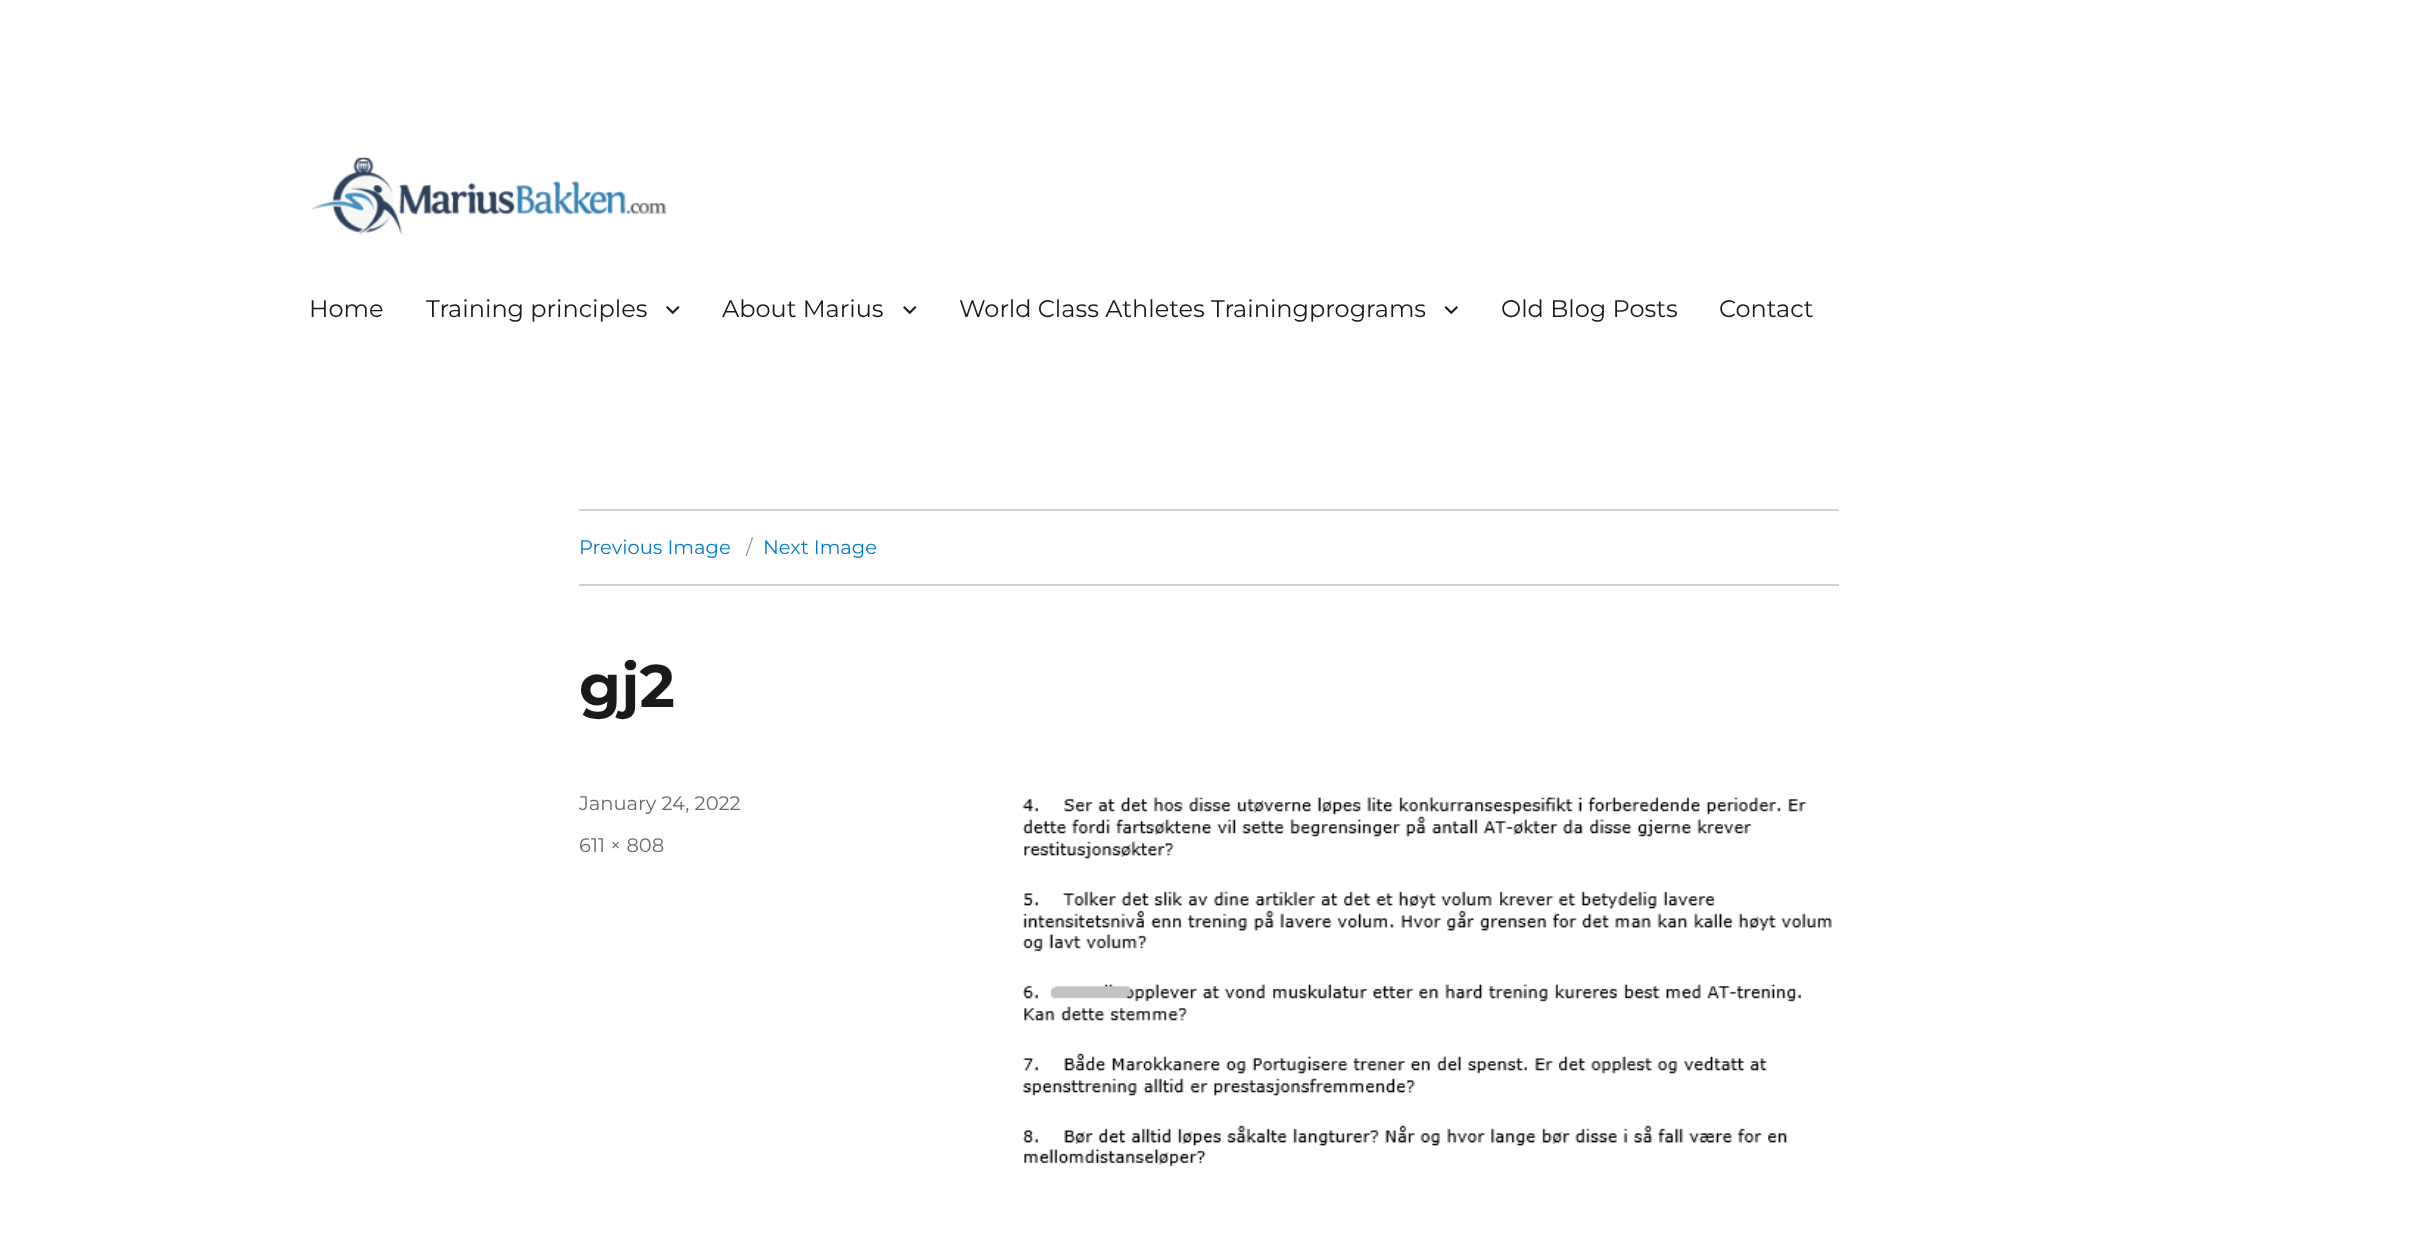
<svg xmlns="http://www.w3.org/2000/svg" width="2418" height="1257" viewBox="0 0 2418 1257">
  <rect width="100%" height="100%" fill="#ffffff"/>
  <image x="311" y="157" width="356" height="78" href="img1.png"/>
  <text x="309" y="317" font-family="Montserrat" font-size="24" fill="#1a1a1a">Home</text>
  <text x="426" y="317" font-family="Montserrat" font-size="24" fill="#1a1a1a">Training principles</text>
  <image x="666" y="306" width="14" height="9" href="img2.png"/>
  <text x="722" y="317" font-family="Montserrat" font-size="24" fill="#1a1a1a">About Marius</text>
  <image x="903" y="306" width="14" height="9" href="img2.png"/>
  <text x="959" y="317" font-family="Montserrat" font-size="24" fill="#1a1a1a">World Class Athletes Trainingprograms</text>
  <image x="1444" y="306" width="14" height="9" href="img3.png"/>
  <text x="1501" y="317" font-family="Montserrat" font-size="24" fill="#1a1a1a">Old Blog Posts</text>
  <text x="1719" y="317" font-family="Montserrat" font-size="24" fill="#1a1a1a">Contact</text>
  <rect x="579" y="509" width="1260" height="2" fill="#d1d1d1"/>
  <rect x="579" y="584" width="1260" height="2" fill="#d1d1d1"/>
  <text x="579" y="554" font-family="Montserrat" font-size="19.5" fill="#007acc">Previous Image</text>
  <text x="746" y="554" font-family="Montserrat" font-size="19.5" fill="#959595">/</text>
  <text x="763" y="554" font-family="Montserrat" font-size="19.5" fill="#007acc">Next Image</text>
  <text x="579" y="707" font-family="Montserrat" font-size="60" font-weight="bold" fill="#1a1a1a">gj2</text>
  <text x="579" y="810" font-family="Montserrat" font-size="19.5" fill="#686868">January 24, 2022</text>
  <text x="579" y="852" font-family="Montserrat" font-size="19.5" fill="#686868">611 × 808</text>
  <image x="952" y="797" width="880" height="429" href="img4.png"/>
</svg>
